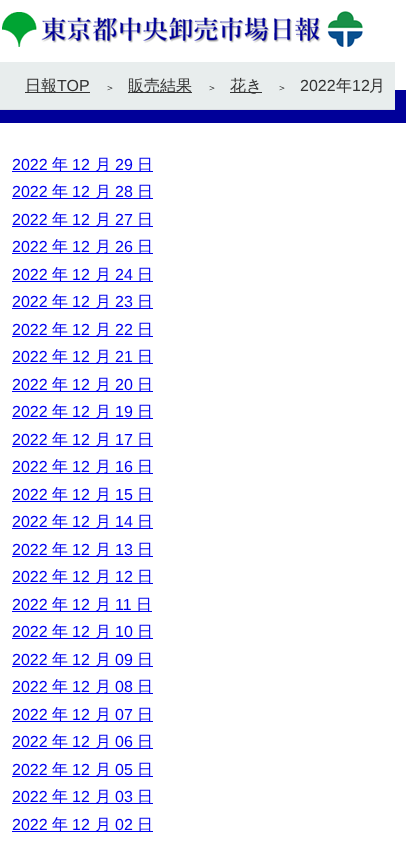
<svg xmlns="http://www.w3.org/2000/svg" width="406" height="846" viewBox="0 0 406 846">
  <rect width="100%" height="100%" fill="#ffffff"/>
  <image x="2" y="11" width="361" height="36" href="img1.png"/>
  <rect x="0" y="90" width="406" height="33" fill="#000099"/>
  <rect x="0" y="62" width="395" height="47" fill="#e8eded"/>
  <rect x="0" y="109" width="395" height="1" fill="#dcdfe3"/>
  <rect x="25" y="92" width="65" height="1" fill="#333333"/>
  <text x="25" y="91" font-family="WenQuanYi Zen Hei" font-size="16" font-weight="500" fill="#333333">日報</text>
  <text x="57" y="91" font-family="Liberation Sans" font-size="16" fill="#333333">TOP</text>
  <text x="105" y="91" font-family="WenQuanYi Zen Hei" font-size="10" font-weight="500" fill="#000000">＞</text>
  <rect x="128" y="92" width="64" height="1" fill="#333333"/>
  <text x="128" y="91" font-family="WenQuanYi Zen Hei" font-size="16" font-weight="500" fill="#333333">販売結果</text>
  <text x="207" y="91" font-family="WenQuanYi Zen Hei" font-size="10" font-weight="500" fill="#000000">＞</text>
  <rect x="230" y="92" width="32" height="1" fill="#333333"/>
  <text x="230" y="91" font-family="WenQuanYi Zen Hei" font-size="16" font-weight="500" fill="#333333">花き</text>
  <text x="277" y="91" font-family="WenQuanYi Zen Hei" font-size="10" font-weight="500" fill="#000000">＞</text>
  <text x="300" y="91" font-family="Liberation Sans" font-size="16" fill="#333333">2022</text>
  <text x="336" y="91" font-family="WenQuanYi Zen Hei" font-size="16" font-weight="500" fill="#333333">年</text>
  <text x="352" y="91" font-family="Liberation Sans" font-size="16" fill="#333333">12</text>
  <text x="369" y="91" font-family="WenQuanYi Zen Hei" font-size="16" font-weight="500" fill="#333333">月</text>
  <text x="12" y="170" font-family="Liberation Sans" font-size="16" fill="#0000ee">2022</text>
  <rect x="12" y="171" width="141" height="1" fill="#0000ee"/>
  <text x="52" y="170" font-family="WenQuanYi Zen Hei" font-size="16" font-weight="500" fill="#0000ee">年</text>
  <text x="72" y="170" font-family="Liberation Sans" font-size="16" fill="#0000ee">12</text>
  <text x="95" y="170" font-family="WenQuanYi Zen Hei" font-size="16" font-weight="500" fill="#0000ee">月</text>
  <text x="115" y="170" font-family="Liberation Sans" font-size="16" fill="#0000ee">29</text>
  <text x="137" y="170" font-family="WenQuanYi Zen Hei" font-size="16" font-weight="500" fill="#0000ee">日</text>
  <text x="12" y="197" font-family="Liberation Sans" font-size="16" fill="#0000ee">2022</text>
  <rect x="12" y="198" width="141" height="1" fill="#0000ee"/>
  <text x="52" y="197" font-family="WenQuanYi Zen Hei" font-size="16" font-weight="500" fill="#0000ee">年</text>
  <text x="72" y="197" font-family="Liberation Sans" font-size="16" fill="#0000ee">12</text>
  <text x="95" y="197" font-family="WenQuanYi Zen Hei" font-size="16" font-weight="500" fill="#0000ee">月</text>
  <text x="115" y="197" font-family="Liberation Sans" font-size="16" fill="#0000ee">28</text>
  <text x="137" y="197" font-family="WenQuanYi Zen Hei" font-size="16" font-weight="500" fill="#0000ee">日</text>
  <text x="12" y="225" font-family="Liberation Sans" font-size="16" fill="#0000ee">2022</text>
  <rect x="12" y="226" width="141" height="1" fill="#0000ee"/>
  <text x="52" y="225" font-family="WenQuanYi Zen Hei" font-size="16" font-weight="500" fill="#0000ee">年</text>
  <text x="72" y="225" font-family="Liberation Sans" font-size="16" fill="#0000ee">12</text>
  <text x="95" y="225" font-family="WenQuanYi Zen Hei" font-size="16" font-weight="500" fill="#0000ee">月</text>
  <text x="115" y="225" font-family="Liberation Sans" font-size="16" fill="#0000ee">27</text>
  <text x="137" y="225" font-family="WenQuanYi Zen Hei" font-size="16" font-weight="500" fill="#0000ee">日</text>
  <text x="12" y="252" font-family="Liberation Sans" font-size="16" fill="#0000ee">2022</text>
  <rect x="12" y="253" width="141" height="1" fill="#0000ee"/>
  <text x="52" y="252" font-family="WenQuanYi Zen Hei" font-size="16" font-weight="500" fill="#0000ee">年</text>
  <text x="72" y="252" font-family="Liberation Sans" font-size="16" fill="#0000ee">12</text>
  <text x="95" y="252" font-family="WenQuanYi Zen Hei" font-size="16" font-weight="500" fill="#0000ee">月</text>
  <text x="115" y="252" font-family="Liberation Sans" font-size="16" fill="#0000ee">26</text>
  <text x="137" y="252" font-family="WenQuanYi Zen Hei" font-size="16" font-weight="500" fill="#0000ee">日</text>
  <text x="12" y="280" font-family="Liberation Sans" font-size="16" fill="#0000ee">2022</text>
  <rect x="12" y="281" width="141" height="1" fill="#0000ee"/>
  <text x="52" y="280" font-family="WenQuanYi Zen Hei" font-size="16" font-weight="500" fill="#0000ee">年</text>
  <text x="72" y="280" font-family="Liberation Sans" font-size="16" fill="#0000ee">12</text>
  <text x="95" y="280" font-family="WenQuanYi Zen Hei" font-size="16" font-weight="500" fill="#0000ee">月</text>
  <text x="115" y="280" font-family="Liberation Sans" font-size="16" fill="#0000ee">24</text>
  <text x="137" y="280" font-family="WenQuanYi Zen Hei" font-size="16" font-weight="500" fill="#0000ee">日</text>
  <text x="12" y="307" font-family="Liberation Sans" font-size="16" fill="#0000ee">2022</text>
  <rect x="12" y="308" width="141" height="1" fill="#0000ee"/>
  <text x="52" y="307" font-family="WenQuanYi Zen Hei" font-size="16" font-weight="500" fill="#0000ee">年</text>
  <text x="72" y="307" font-family="Liberation Sans" font-size="16" fill="#0000ee">12</text>
  <text x="95" y="307" font-family="WenQuanYi Zen Hei" font-size="16" font-weight="500" fill="#0000ee">月</text>
  <text x="115" y="307" font-family="Liberation Sans" font-size="16" fill="#0000ee">23</text>
  <text x="137" y="307" font-family="WenQuanYi Zen Hei" font-size="16" font-weight="500" fill="#0000ee">日</text>
  <text x="12" y="335" font-family="Liberation Sans" font-size="16" fill="#0000ee">2022</text>
  <rect x="12" y="336" width="141" height="1" fill="#0000ee"/>
  <text x="52" y="335" font-family="WenQuanYi Zen Hei" font-size="16" font-weight="500" fill="#0000ee">年</text>
  <text x="72" y="335" font-family="Liberation Sans" font-size="16" fill="#0000ee">12</text>
  <text x="95" y="335" font-family="WenQuanYi Zen Hei" font-size="16" font-weight="500" fill="#0000ee">月</text>
  <text x="115" y="335" font-family="Liberation Sans" font-size="16" fill="#0000ee">22</text>
  <text x="137" y="335" font-family="WenQuanYi Zen Hei" font-size="16" font-weight="500" fill="#0000ee">日</text>
  <text x="12" y="362" font-family="Liberation Sans" font-size="16" fill="#0000ee">2022</text>
  <rect x="12" y="363" width="141" height="1" fill="#0000ee"/>
  <text x="52" y="362" font-family="WenQuanYi Zen Hei" font-size="16" font-weight="500" fill="#0000ee">年</text>
  <text x="72" y="362" font-family="Liberation Sans" font-size="16" fill="#0000ee">12</text>
  <text x="95" y="362" font-family="WenQuanYi Zen Hei" font-size="16" font-weight="500" fill="#0000ee">月</text>
  <text x="115" y="362" font-family="Liberation Sans" font-size="16" fill="#0000ee">21</text>
  <text x="137" y="362" font-family="WenQuanYi Zen Hei" font-size="16" font-weight="500" fill="#0000ee">日</text>
  <text x="12" y="390" font-family="Liberation Sans" font-size="16" fill="#0000ee">2022</text>
  <rect x="12" y="391" width="141" height="1" fill="#0000ee"/>
  <text x="52" y="390" font-family="WenQuanYi Zen Hei" font-size="16" font-weight="500" fill="#0000ee">年</text>
  <text x="72" y="390" font-family="Liberation Sans" font-size="16" fill="#0000ee">12</text>
  <text x="95" y="390" font-family="WenQuanYi Zen Hei" font-size="16" font-weight="500" fill="#0000ee">月</text>
  <text x="115" y="390" font-family="Liberation Sans" font-size="16" fill="#0000ee">20</text>
  <text x="137" y="390" font-family="WenQuanYi Zen Hei" font-size="16" font-weight="500" fill="#0000ee">日</text>
  <text x="12" y="417" font-family="Liberation Sans" font-size="16" fill="#0000ee">2022</text>
  <rect x="12" y="418" width="141" height="1" fill="#0000ee"/>
  <text x="52" y="417" font-family="WenQuanYi Zen Hei" font-size="16" font-weight="500" fill="#0000ee">年</text>
  <text x="72" y="417" font-family="Liberation Sans" font-size="16" fill="#0000ee">12</text>
  <text x="95" y="417" font-family="WenQuanYi Zen Hei" font-size="16" font-weight="500" fill="#0000ee">月</text>
  <text x="115" y="417" font-family="Liberation Sans" font-size="16" fill="#0000ee">19</text>
  <text x="137" y="417" font-family="WenQuanYi Zen Hei" font-size="16" font-weight="500" fill="#0000ee">日</text>
  <text x="12" y="445" font-family="Liberation Sans" font-size="16" fill="#0000ee">2022</text>
  <rect x="12" y="446" width="141" height="1" fill="#0000ee"/>
  <text x="52" y="445" font-family="WenQuanYi Zen Hei" font-size="16" font-weight="500" fill="#0000ee">年</text>
  <text x="72" y="445" font-family="Liberation Sans" font-size="16" fill="#0000ee">12</text>
  <text x="95" y="445" font-family="WenQuanYi Zen Hei" font-size="16" font-weight="500" fill="#0000ee">月</text>
  <text x="115" y="445" font-family="Liberation Sans" font-size="16" fill="#0000ee">17</text>
  <text x="137" y="445" font-family="WenQuanYi Zen Hei" font-size="16" font-weight="500" fill="#0000ee">日</text>
  <text x="12" y="472" font-family="Liberation Sans" font-size="16" fill="#0000ee">2022</text>
  <rect x="12" y="473" width="141" height="1" fill="#0000ee"/>
  <text x="52" y="472" font-family="WenQuanYi Zen Hei" font-size="16" font-weight="500" fill="#0000ee">年</text>
  <text x="72" y="472" font-family="Liberation Sans" font-size="16" fill="#0000ee">12</text>
  <text x="95" y="472" font-family="WenQuanYi Zen Hei" font-size="16" font-weight="500" fill="#0000ee">月</text>
  <text x="115" y="472" font-family="Liberation Sans" font-size="16" fill="#0000ee">16</text>
  <text x="137" y="472" font-family="WenQuanYi Zen Hei" font-size="16" font-weight="500" fill="#0000ee">日</text>
  <text x="12" y="500" font-family="Liberation Sans" font-size="16" fill="#0000ee">2022</text>
  <rect x="12" y="501" width="141" height="1" fill="#0000ee"/>
  <text x="52" y="500" font-family="WenQuanYi Zen Hei" font-size="16" font-weight="500" fill="#0000ee">年</text>
  <text x="72" y="500" font-family="Liberation Sans" font-size="16" fill="#0000ee">12</text>
  <text x="95" y="500" font-family="WenQuanYi Zen Hei" font-size="16" font-weight="500" fill="#0000ee">月</text>
  <text x="115" y="500" font-family="Liberation Sans" font-size="16" fill="#0000ee">15</text>
  <text x="137" y="500" font-family="WenQuanYi Zen Hei" font-size="16" font-weight="500" fill="#0000ee">日</text>
  <text x="12" y="527" font-family="Liberation Sans" font-size="16" fill="#0000ee">2022</text>
  <rect x="12" y="528" width="141" height="1" fill="#0000ee"/>
  <text x="52" y="527" font-family="WenQuanYi Zen Hei" font-size="16" font-weight="500" fill="#0000ee">年</text>
  <text x="72" y="527" font-family="Liberation Sans" font-size="16" fill="#0000ee">12</text>
  <text x="95" y="527" font-family="WenQuanYi Zen Hei" font-size="16" font-weight="500" fill="#0000ee">月</text>
  <text x="115" y="527" font-family="Liberation Sans" font-size="16" fill="#0000ee">14</text>
  <text x="137" y="527" font-family="WenQuanYi Zen Hei" font-size="16" font-weight="500" fill="#0000ee">日</text>
  <text x="12" y="555" font-family="Liberation Sans" font-size="16" fill="#0000ee">2022</text>
  <rect x="12" y="556" width="141" height="1" fill="#0000ee"/>
  <text x="52" y="555" font-family="WenQuanYi Zen Hei" font-size="16" font-weight="500" fill="#0000ee">年</text>
  <text x="72" y="555" font-family="Liberation Sans" font-size="16" fill="#0000ee">12</text>
  <text x="95" y="555" font-family="WenQuanYi Zen Hei" font-size="16" font-weight="500" fill="#0000ee">月</text>
  <text x="115" y="555" font-family="Liberation Sans" font-size="16" fill="#0000ee">13</text>
  <text x="137" y="555" font-family="WenQuanYi Zen Hei" font-size="16" font-weight="500" fill="#0000ee">日</text>
  <text x="12" y="582" font-family="Liberation Sans" font-size="16" fill="#0000ee">2022</text>
  <rect x="12" y="583" width="141" height="1" fill="#0000ee"/>
  <text x="52" y="582" font-family="WenQuanYi Zen Hei" font-size="16" font-weight="500" fill="#0000ee">年</text>
  <text x="72" y="582" font-family="Liberation Sans" font-size="16" fill="#0000ee">12</text>
  <text x="95" y="582" font-family="WenQuanYi Zen Hei" font-size="16" font-weight="500" fill="#0000ee">月</text>
  <text x="115" y="582" font-family="Liberation Sans" font-size="16" fill="#0000ee">12</text>
  <text x="137" y="582" font-family="WenQuanYi Zen Hei" font-size="16" font-weight="500" fill="#0000ee">日</text>
  <text x="12" y="610" font-family="Liberation Sans" font-size="16" fill="#0000ee">2022</text>
  <rect x="12" y="611" width="140" height="1" fill="#0000ee"/>
  <text x="52" y="610" font-family="WenQuanYi Zen Hei" font-size="16" font-weight="500" fill="#0000ee">年</text>
  <text x="72" y="610" font-family="Liberation Sans" font-size="16" fill="#0000ee">12</text>
  <text x="95" y="610" font-family="WenQuanYi Zen Hei" font-size="16" font-weight="500" fill="#0000ee">月</text>
  <text x="115" y="610" font-family="Liberation Sans" font-size="16" fill="#0000ee">11</text>
  <text x="136" y="610" font-family="WenQuanYi Zen Hei" font-size="16" font-weight="500" fill="#0000ee">日</text>
  <text x="12" y="637" font-family="Liberation Sans" font-size="16" fill="#0000ee">2022</text>
  <rect x="12" y="638" width="141" height="1" fill="#0000ee"/>
  <text x="52" y="637" font-family="WenQuanYi Zen Hei" font-size="16" font-weight="500" fill="#0000ee">年</text>
  <text x="72" y="637" font-family="Liberation Sans" font-size="16" fill="#0000ee">12</text>
  <text x="95" y="637" font-family="WenQuanYi Zen Hei" font-size="16" font-weight="500" fill="#0000ee">月</text>
  <text x="115" y="637" font-family="Liberation Sans" font-size="16" fill="#0000ee">10</text>
  <text x="137" y="637" font-family="WenQuanYi Zen Hei" font-size="16" font-weight="500" fill="#0000ee">日</text>
  <text x="12" y="665" font-family="Liberation Sans" font-size="16" fill="#0000ee">2022</text>
  <rect x="12" y="666" width="141" height="1" fill="#0000ee"/>
  <text x="52" y="665" font-family="WenQuanYi Zen Hei" font-size="16" font-weight="500" fill="#0000ee">年</text>
  <text x="72" y="665" font-family="Liberation Sans" font-size="16" fill="#0000ee">12</text>
  <text x="95" y="665" font-family="WenQuanYi Zen Hei" font-size="16" font-weight="500" fill="#0000ee">月</text>
  <text x="115" y="665" font-family="Liberation Sans" font-size="16" fill="#0000ee">09</text>
  <text x="137" y="665" font-family="WenQuanYi Zen Hei" font-size="16" font-weight="500" fill="#0000ee">日</text>
  <text x="12" y="692" font-family="Liberation Sans" font-size="16" fill="#0000ee">2022</text>
  <rect x="12" y="693" width="141" height="1" fill="#0000ee"/>
  <text x="52" y="692" font-family="WenQuanYi Zen Hei" font-size="16" font-weight="500" fill="#0000ee">年</text>
  <text x="72" y="692" font-family="Liberation Sans" font-size="16" fill="#0000ee">12</text>
  <text x="95" y="692" font-family="WenQuanYi Zen Hei" font-size="16" font-weight="500" fill="#0000ee">月</text>
  <text x="115" y="692" font-family="Liberation Sans" font-size="16" fill="#0000ee">08</text>
  <text x="137" y="692" font-family="WenQuanYi Zen Hei" font-size="16" font-weight="500" fill="#0000ee">日</text>
  <text x="12" y="720" font-family="Liberation Sans" font-size="16" fill="#0000ee">2022</text>
  <rect x="12" y="721" width="141" height="1" fill="#0000ee"/>
  <text x="52" y="720" font-family="WenQuanYi Zen Hei" font-size="16" font-weight="500" fill="#0000ee">年</text>
  <text x="72" y="720" font-family="Liberation Sans" font-size="16" fill="#0000ee">12</text>
  <text x="95" y="720" font-family="WenQuanYi Zen Hei" font-size="16" font-weight="500" fill="#0000ee">月</text>
  <text x="115" y="720" font-family="Liberation Sans" font-size="16" fill="#0000ee">07</text>
  <text x="137" y="720" font-family="WenQuanYi Zen Hei" font-size="16" font-weight="500" fill="#0000ee">日</text>
  <text x="12" y="747" font-family="Liberation Sans" font-size="16" fill="#0000ee">2022</text>
  <rect x="12" y="748" width="141" height="1" fill="#0000ee"/>
  <text x="52" y="747" font-family="WenQuanYi Zen Hei" font-size="16" font-weight="500" fill="#0000ee">年</text>
  <text x="72" y="747" font-family="Liberation Sans" font-size="16" fill="#0000ee">12</text>
  <text x="95" y="747" font-family="WenQuanYi Zen Hei" font-size="16" font-weight="500" fill="#0000ee">月</text>
  <text x="115" y="747" font-family="Liberation Sans" font-size="16" fill="#0000ee">06</text>
  <text x="137" y="747" font-family="WenQuanYi Zen Hei" font-size="16" font-weight="500" fill="#0000ee">日</text>
  <text x="12" y="775" font-family="Liberation Sans" font-size="16" fill="#0000ee">2022</text>
  <rect x="12" y="776" width="141" height="1" fill="#0000ee"/>
  <text x="52" y="775" font-family="WenQuanYi Zen Hei" font-size="16" font-weight="500" fill="#0000ee">年</text>
  <text x="72" y="775" font-family="Liberation Sans" font-size="16" fill="#0000ee">12</text>
  <text x="95" y="775" font-family="WenQuanYi Zen Hei" font-size="16" font-weight="500" fill="#0000ee">月</text>
  <text x="115" y="775" font-family="Liberation Sans" font-size="16" fill="#0000ee">05</text>
  <text x="137" y="775" font-family="WenQuanYi Zen Hei" font-size="16" font-weight="500" fill="#0000ee">日</text>
  <text x="12" y="802" font-family="Liberation Sans" font-size="16" fill="#0000ee">2022</text>
  <rect x="12" y="803" width="141" height="1" fill="#0000ee"/>
  <text x="52" y="802" font-family="WenQuanYi Zen Hei" font-size="16" font-weight="500" fill="#0000ee">年</text>
  <text x="72" y="802" font-family="Liberation Sans" font-size="16" fill="#0000ee">12</text>
  <text x="95" y="802" font-family="WenQuanYi Zen Hei" font-size="16" font-weight="500" fill="#0000ee">月</text>
  <text x="115" y="802" font-family="Liberation Sans" font-size="16" fill="#0000ee">03</text>
  <text x="137" y="802" font-family="WenQuanYi Zen Hei" font-size="16" font-weight="500" fill="#0000ee">日</text>
  <text x="12" y="830" font-family="Liberation Sans" font-size="16" fill="#0000ee">2022</text>
  <rect x="12" y="831" width="141" height="1" fill="#0000ee"/>
  <text x="52" y="830" font-family="WenQuanYi Zen Hei" font-size="16" font-weight="500" fill="#0000ee">年</text>
  <text x="72" y="830" font-family="Liberation Sans" font-size="16" fill="#0000ee">12</text>
  <text x="95" y="830" font-family="WenQuanYi Zen Hei" font-size="16" font-weight="500" fill="#0000ee">月</text>
  <text x="115" y="830" font-family="Liberation Sans" font-size="16" fill="#0000ee">02</text>
  <text x="137" y="830" font-family="WenQuanYi Zen Hei" font-size="16" font-weight="500" fill="#0000ee">日</text>
</svg>
